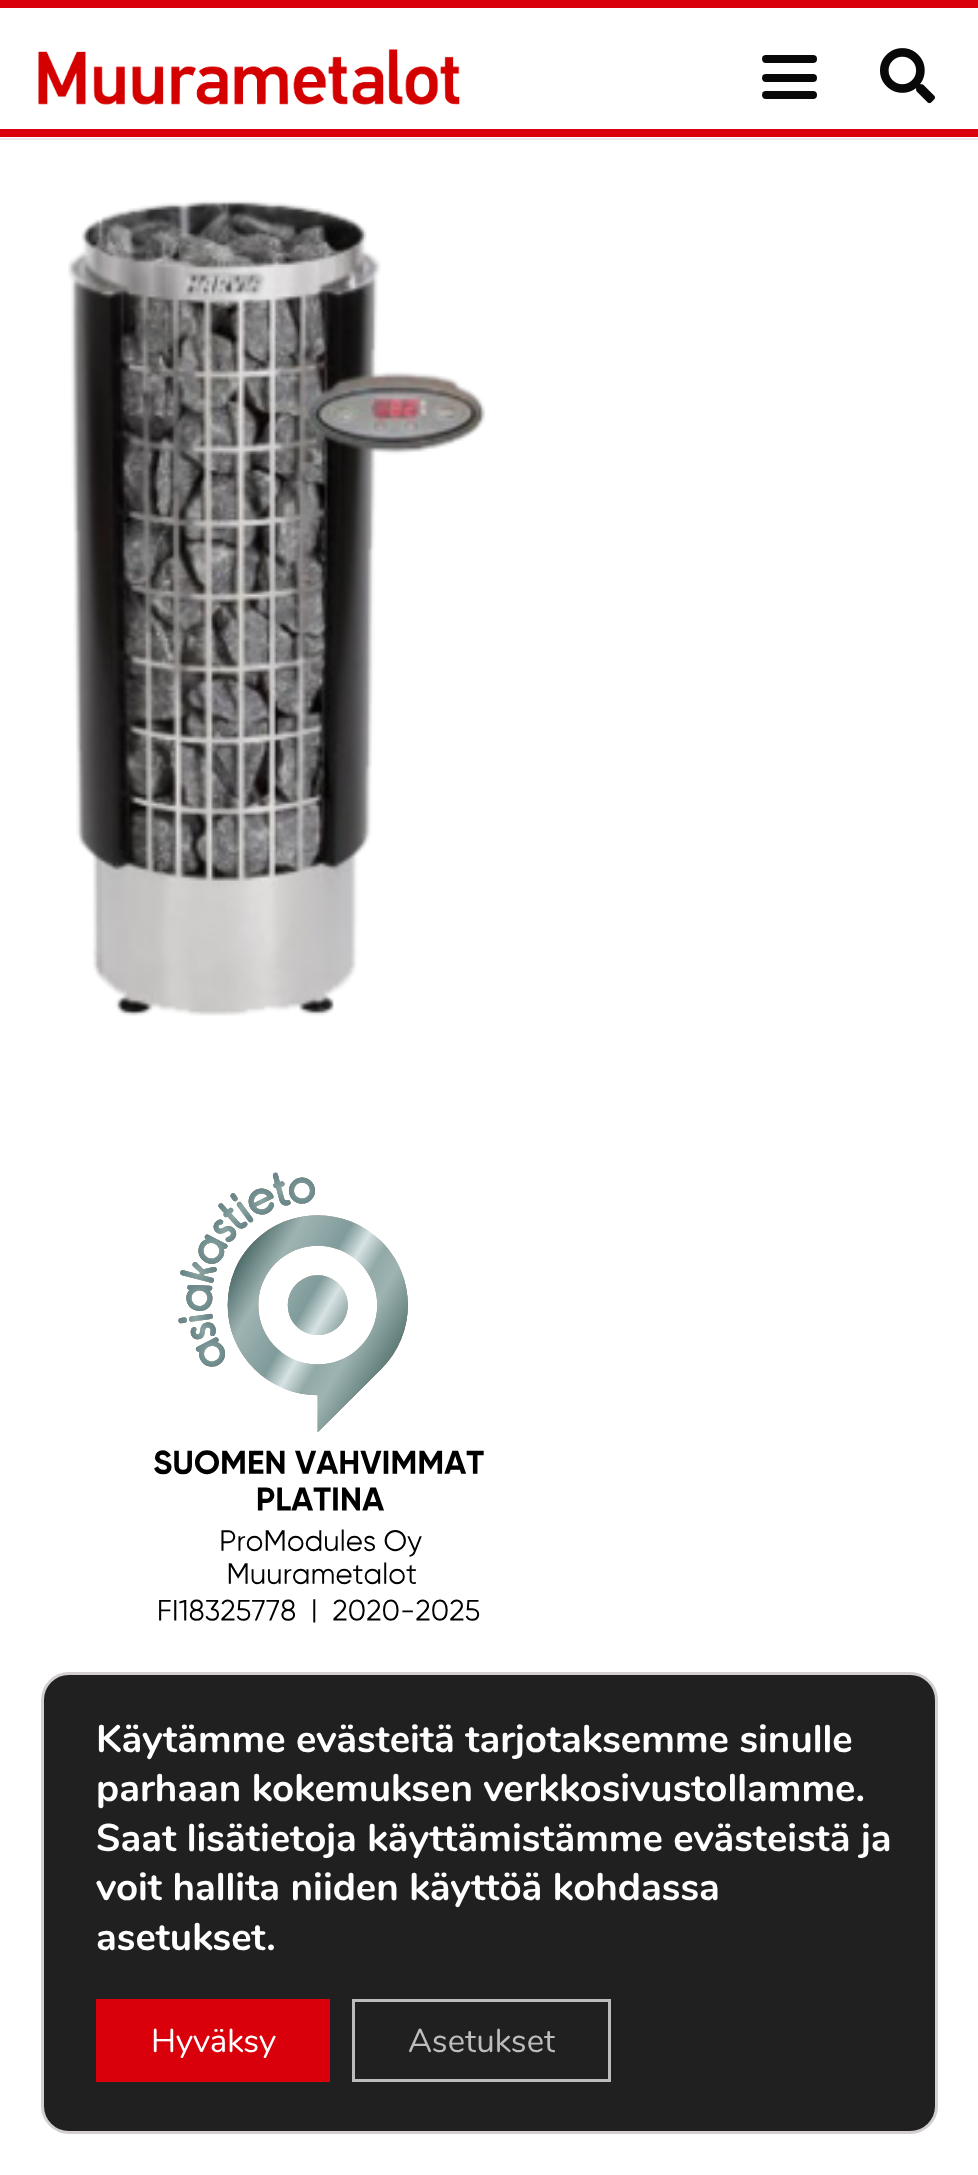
<svg xmlns="http://www.w3.org/2000/svg" width="978" height="2175" viewBox="0 0 978 2175">
  <rect width="100%" height="100%" fill="#ffffff"/>
  <rect x="0" y="138" width="978" height="2" fill="#ebebeb"/>
  <rect x="0" y="0" width="978" height="8" fill="#d9000b"/>
  <rect x="0" y="129" width="978" height="8" fill="#d9000b"/>
  <image x="38" y="49" width="422" height="56" href="img1.png"/>
  <rect x="762" y="74" width="55" height="8" rx="4" fill="#080808"/>
  <rect x="762" y="55" width="55" height="8" rx="4" fill="#080808"/>
  <rect x="762" y="91" width="55" height="8" rx="4" fill="#080808"/>
  <image x="880" y="48" width="55" height="56" href="img2.png"/>
  <image x="68" y="200" width="418" height="816" href="img3.png"/>
  <image x="154" y="1172" width="330" height="451" href="img4.png"/>
  <rect x="42.5" y="1673.5" width="894" height="459" rx="26.5" fill="#202020" stroke="#d3ced2" stroke-width="3"/>
  <text x="96" y="1752" font-family="Nunito" font-size="38.5" font-weight="bold" fill="#ffffff">Käytämme evästeitä tarjotaksemme sinulle</text>
  <text x="96" y="1801" font-family="Nunito" font-size="38.5" font-weight="bold" fill="#ffffff">parhaan kokemuksen verkkosivustollamme.</text>
  <text x="96" y="1851" font-family="Nunito" font-size="38.5" font-weight="bold" fill="#ffffff">Saat lisätietoja käyttämistämme evästeistä ja</text>
  <text x="96" y="1900" font-family="Nunito" font-size="38.5" font-weight="bold" fill="#ffffff">voit hallita niiden käyttöä kohdassa</text>
  <text x="96" y="1950" font-family="Nunito" font-size="38.5" font-weight="bold" fill="#ffffff">asetukset.</text>
  <rect x="96" y="1999" width="234" height="83" fill="#d9000b"/>
  <text x="151" y="2052" font-family="Nunito" font-size="33" fill="#ffffff">Hyväksy</text>
  <rect x="353.5" y="2000.5" width="256" height="80" fill="none" stroke="#bcbcbc" stroke-width="3"/>
  <text x="408" y="2052" font-family="Nunito" font-size="33" fill="#bcbcbc">Asetukset</text>
</svg>
